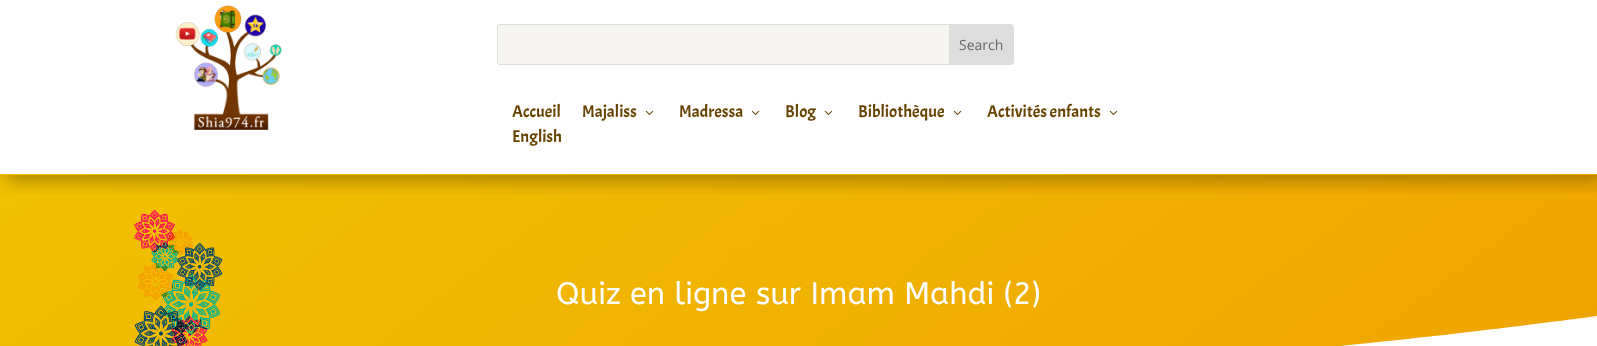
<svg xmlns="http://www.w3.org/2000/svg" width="1597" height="346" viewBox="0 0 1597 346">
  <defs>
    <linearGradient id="g1" gradientUnits="userSpaceOnUse" x1="451" y1="-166" x2="1146" y2="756"><stop offset="0" stop-color="#f2c100"/><stop offset="1" stop-color="#efa300"/></linearGradient>
    <clipPath id="clip1"><rect x="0" y="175" width="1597" height="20"/></clipPath>
    <filter id="blur1" x="-50%" y="-200%" width="200%" height="500%"><feGaussianBlur stdDeviation="9"/></filter>
  </defs>
  <rect width="100%" height="100%" fill="#ffffff"/>
  <rect x="0" y="174" width="1597" height="172" fill="url(#g1)"/>
  <g clip-path="url(#clip1)">
    <rect x="6" y="6" width="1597" height="175" fill="#000000" fill-opacity="0.3" filter="url(#blur1)"/>
  </g>
  <image x="175" y="5" width="107" height="125" href="img1.png"/>
  <rect x="497.5" y="24.5" width="516" height="40" rx="2.5" fill="none" stroke="#dddddd"/>
  <path d="M500 25H949V64H500C499 64 498 63 498 62V27C498 26 499 25 500 25Z" fill="#e0dbce" fill-opacity="0.27"/>
  <path d="M949 25H1011C1012 25 1013 26 1013 27V62C1013 63 1012 64 1011 64H949Z" fill="#dddddd"/>
  <text x="959" y="50" font-family="Open Sans" font-size="14" fill="#666666">Search</text>
  <text x="512" y="117" font-family="Acme" font-size="17" fill="#684300">Accueil</text>
  <text x="582" y="117" font-family="Acme" font-size="17" fill="#684300">Majaliss</text>
  <image x="645" y="110" width="9" height="5" href="img2.png"/>
  <text x="679" y="117" font-family="Acme" font-size="17" fill="#684300">Madressa</text>
  <image x="751" y="110" width="9" height="5" href="img2.png"/>
  <text x="785" y="117" font-family="Acme" font-size="17" fill="#684300">Blog</text>
  <image x="824" y="110" width="9" height="5" href="img2.png"/>
  <text x="858" y="117" font-family="Acme" font-size="17" fill="#684300">Bibliothèque</text>
  <image x="953" y="110" width="9" height="5" href="img2.png"/>
  <text x="987" y="117" font-family="Acme" font-size="17" fill="#684300">Activités enfants</text>
  <image x="1109" y="110" width="9" height="5" href="img2.png"/>
  <text x="512" y="142" font-family="Acme" font-size="17" fill="#684300">English</text>
  <image x="134" y="210" width="89" height="136" href="img3.png"/>
  <text x="556" y="304" font-family="ABeeZee" font-size="31" fill="#ffffff">Quiz en ligne sur Imam Mahdi (2)</text>
  <path d="M1597 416H0C882 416 1597 316 1597 316Z" fill="#ffffff"/>
</svg>
